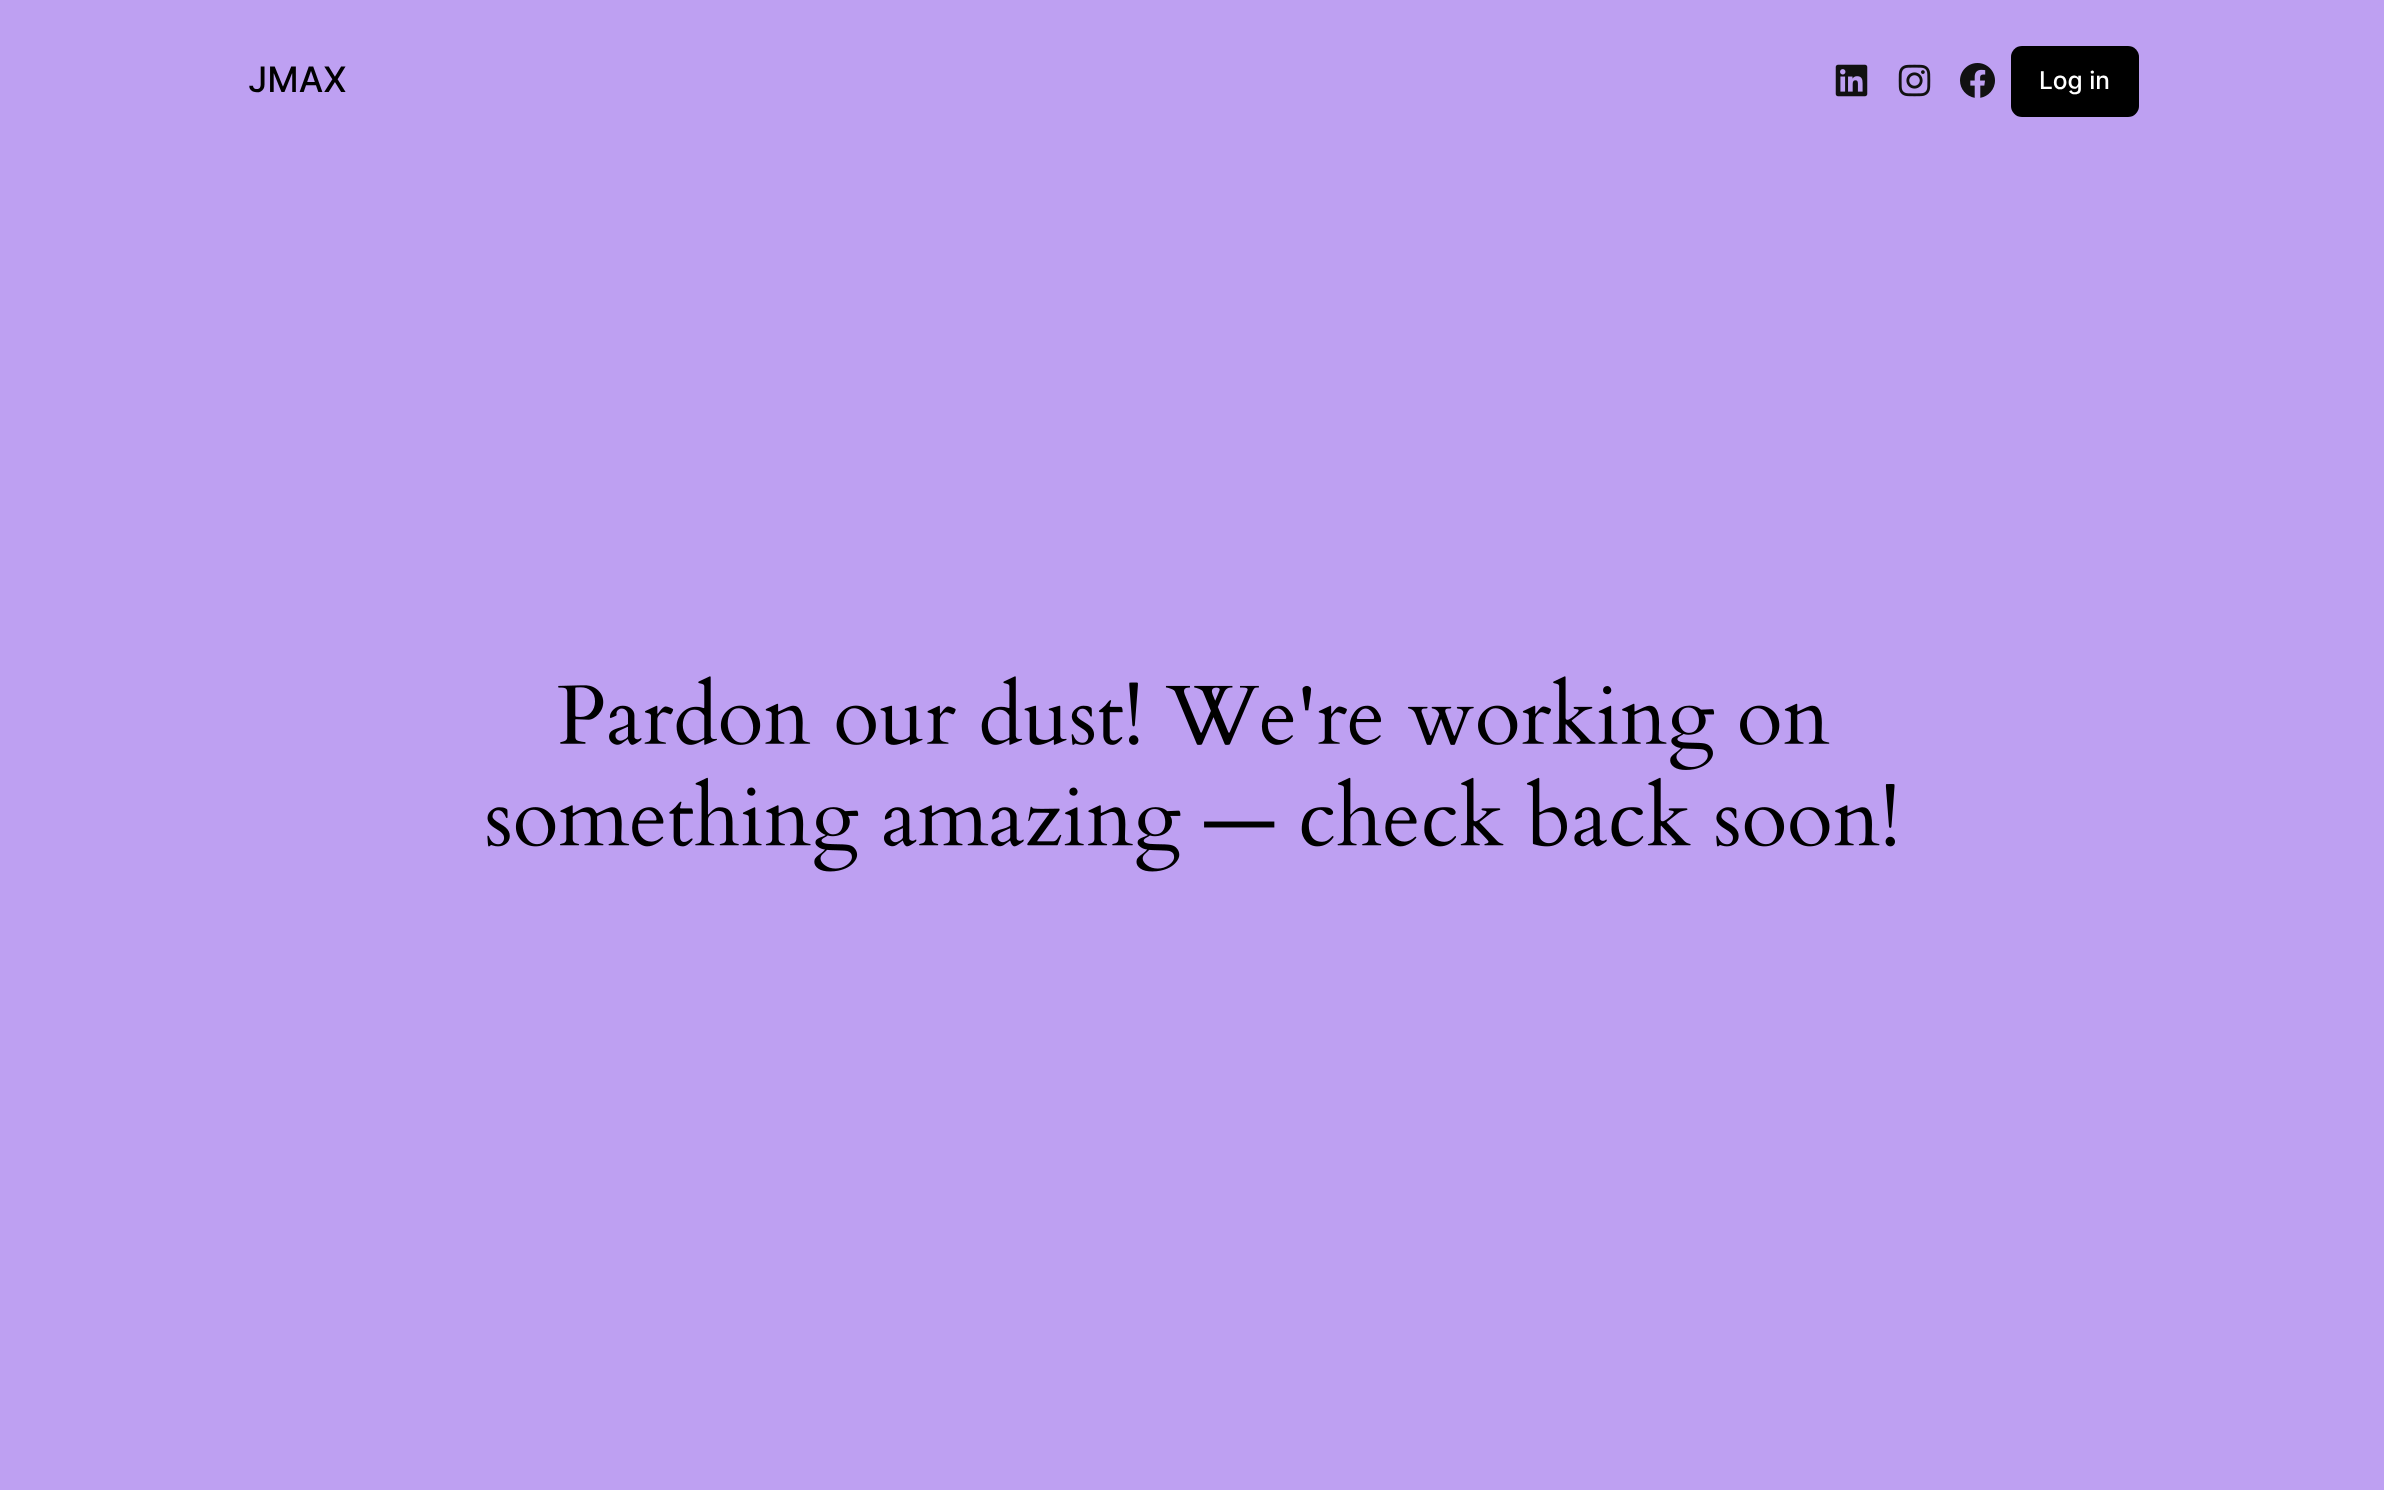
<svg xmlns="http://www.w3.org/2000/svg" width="2384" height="1490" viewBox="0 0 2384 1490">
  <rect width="100%" height="100%" fill="#bea0f2"/>
  <text x="248" y="92" font-family="Inter" font-size="35" font-weight="500" fill="#000000">JMAX</text>
  <image x="1835" y="64" width="33" height="33" href="img1.png"/>
  <image x="1898" y="64" width="33" height="33" href="img2.png"/>
  <image x="1960" y="63" width="35" height="35" href="img3.png"/>
  <rect x="2011" y="46" width="128" height="71" rx="11" fill="#000000"/>
  <text x="2039" y="89" font-family="Inter" font-size="24.5" font-weight="500" fill="#ffffff">Log in</text>
  <image x="558" y="676" width="1272" height="94" href="img4.png"/>
  <image x="487" y="777" width="1408" height="95" href="img5.png"/>
</svg>
